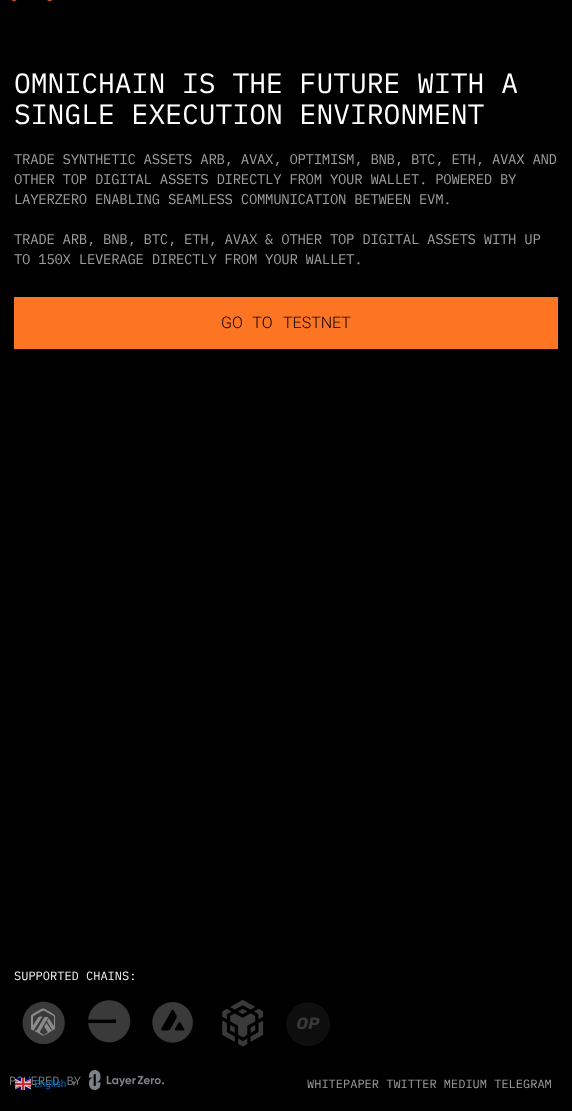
<svg xmlns="http://www.w3.org/2000/svg" width="572" height="1111" viewBox="0 0 572 1111">
  <rect width="100%" height="100%" fill="#000000"/>
  <image x="11" y="0" width="42" height="2" href="img1.png"/>
  <text x="14" y="93" font-family="IBM Plex Mono" font-size="28" fill="#ffffff">OMNICHAIN IS THE FUTURE WITH A</text>
  <text x="14" y="124" font-family="IBM Plex Mono" font-size="28" fill="#ffffff">SINGLE EXECUTION ENVIRONMENT</text>
  <text x="14" y="164" font-family="IBM Plex Mono" font-size="14" letter-spacing="-0.3" fill="#9e9e9e">TRADE SYNTHETIC ASSETS ARB, AVAX, OPTIMISM, BNB, BTC, ETH, AVAX AND</text>
  <text x="14" y="184" font-family="IBM Plex Mono" font-size="14" letter-spacing="-0.3" fill="#9e9e9e">OTHER TOP DIGITAL ASSETS DIRECTLY FROM YOUR WALLET. POWERED BY</text>
  <text x="14" y="204" font-family="IBM Plex Mono" font-size="14" letter-spacing="-0.3" fill="#9e9e9e">LAYERZERO ENABLING SEAMLESS COMMUNICATION BETWEEN EVM.</text>
  <text x="14" y="244" font-family="IBM Plex Mono" font-size="14" letter-spacing="-0.3" fill="#9e9e9e">TRADE ARB, BNB, BTC, ETH, AVAX &amp; OTHER TOP DIGITAL ASSETS WITH UP</text>
  <text x="14" y="264" font-family="IBM Plex Mono" font-size="14" letter-spacing="-0.3" fill="#9e9e9e">TO 150X LEVERAGE DIRECTLY FROM YOUR WALLET.</text>
  <rect x="14" y="297" width="544" height="52" fill="#fd7423"/>
  <text x="221" y="328" word-spacing="6" font-family="Roboto" font-size="16" font-weight="300" fill="#000000">GO TO</text>
  <text x="283" y="328" font-family="Roboto" font-size="16" font-weight="300" fill="#000000">TESTNET</text>
  <text x="14" y="980" font-family="IBM Plex Mono" font-size="12" fill="#f2f2f2">SUPPORTED CHAINS:</text>
  <image x="22" y="1001" width="43" height="43" href="img2.png"/>
  <image x="88" y="1000" width="43" height="43" href="img3.png"/>
  <image x="152" y="1002" width="41" height="41" href="img4.png"/>
  <image x="222" y="1000" width="42" height="47" href="img5.png"/>
  <image x="286" y="1002" width="44" height="44" href="img6.png"/>
  <image x="10" y="1070" width="154" height="20" href="img7.png"/>
  <text x="307" y="1088" font-family="IBM Plex Mono" font-size="12" fill="#9e9e9e">WHITEPAPER TWITTER MEDIUM TELEGRAM</text>
  <image x="15" y="1078" width="16" height="12" href="img8.png"/>
  <text x="34" y="1087" font-family="Roboto" font-size="10" fill="#0170b9">English</text>
  <text x="70" y="1086" font-family="Liberation Sans" font-size="8" font-weight="bold" fill="#666666">▼</text>
</svg>
